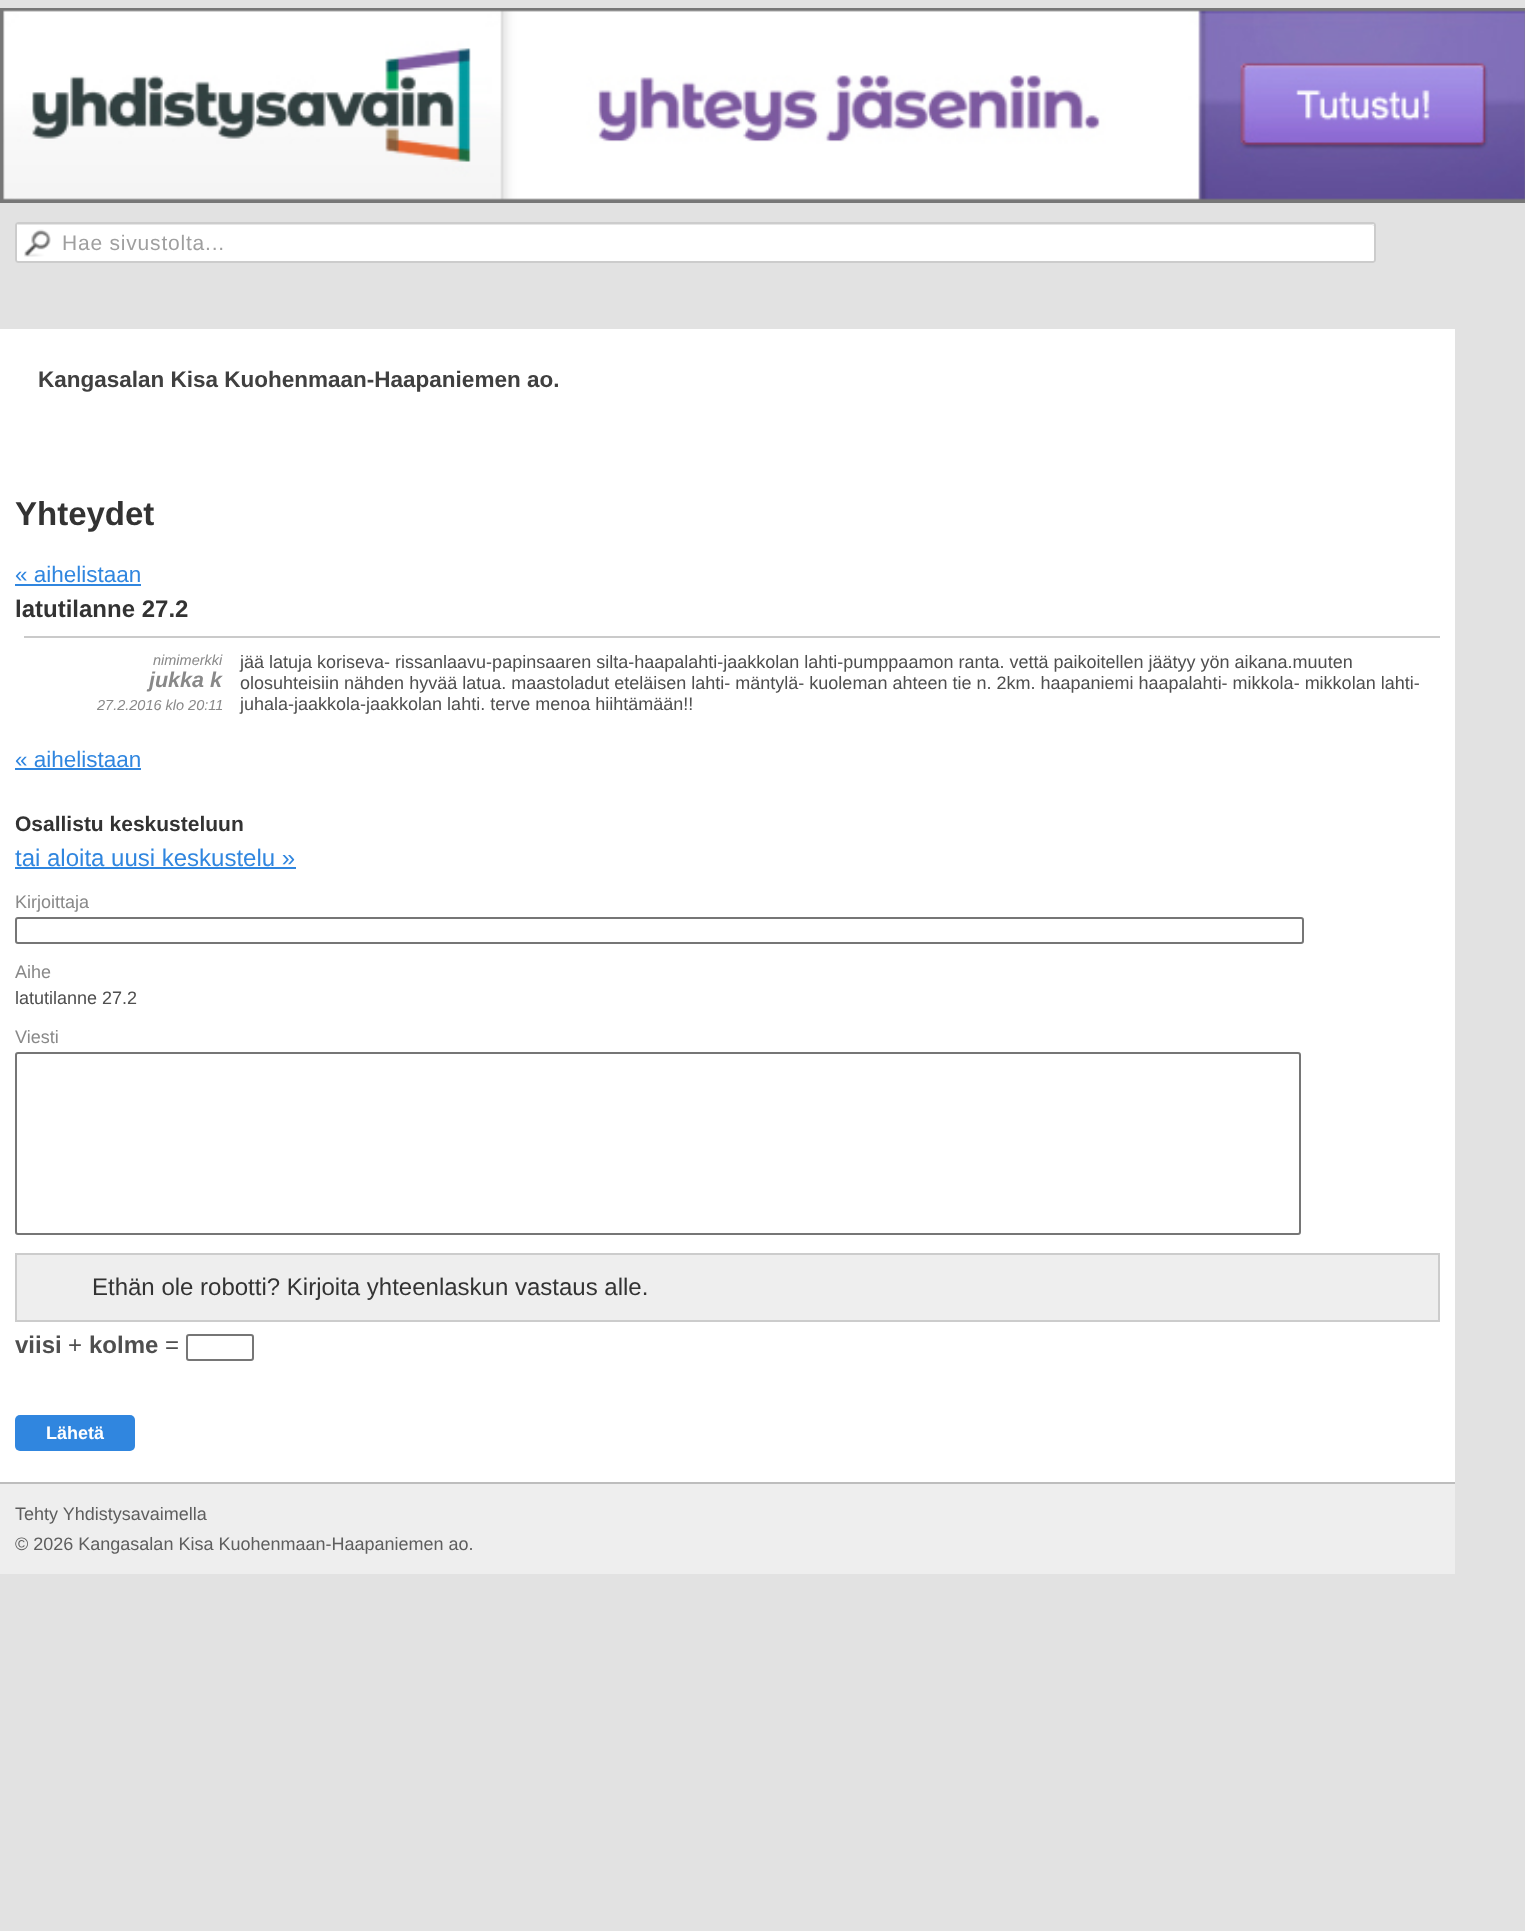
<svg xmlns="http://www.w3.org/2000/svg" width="1525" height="1931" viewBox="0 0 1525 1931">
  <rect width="100%" height="100%" fill="#e2e2e2"/>
  <rect x="1" y="9" width="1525" height="193" fill="none" stroke="#777777" stroke-width="2"/>
  <image x="2" y="10" width="1523" height="191" href="img1.png"/>
  <rect x="15" y="222" width="1361" height="41" rx="3" fill="#ffffff"/>
  <image x="24" y="229" width="27" height="28" href="img2.png"/>
  <path d="M18 225H1372L1374 226V225L1372 224H18C18 224 17 225 17 225Z" fill="#e6e6e6"/>
  <rect x="16" y="223" width="1359" height="39" rx="2" fill="none" stroke="#cccccc" stroke-width="2"/>
  <text x="62" y="250" font-family="Liberation Sans" font-size="21" letter-spacing="0.8" fill="#9f9f9f">Hae sivustolta...</text>
  <rect x="0" y="329" width="1455" height="1153" fill="#ffffff"/>
  <text x="38" y="387" font-family="Liberation Sans" font-size="22.5" font-weight="bold" fill="#404040">Kangasalan Kisa Kuohenmaan-Haapaniemen ao.</text>
  <text x="15" y="525" font-family="Liberation Sans" font-size="33" font-weight="bold" fill="#333333">Yhteydet</text>
  <text x="15" y="582" font-family="Liberation Sans" font-size="22.5" fill="#3086df">« aihelistaan</text>
  <rect x="15" y="584" width="126" height="2" fill="#3086df"/>
  <text x="15" y="617" font-family="Liberation Sans" font-size="24" font-weight="bold" fill="#333333">latutilanne 27.2</text>
  <rect x="24" y="636" width="1416" height="2" fill="#cacaca"/>
  <text x="153" y="665" font-family="Liberation Sans" font-size="14.5" font-style="italic" fill="#898989">nimimerkki</text>
  <text x="149" y="687" font-family="Liberation Sans" font-size="21.5" font-weight="bold" font-style="italic" fill="#898989">jukka k</text>
  <text x="97" y="710" font-family="Liberation Sans" font-size="14.5" font-style="italic" fill="#898989">27.2.2016 klo 20:11</text>
  <text x="240" y="668" font-family="Liberation Sans" font-size="18" fill="#4f4f4f">jää latuja koriseva- rissanlaavu-papinsaaren silta-haapalahti-jaakkolan lahti-pumppaamon ranta. vettä paikoitellen jäätyy yön aikana.muuten</text>
  <text x="240" y="689" font-family="Liberation Sans" font-size="18" fill="#4f4f4f">olosuhteisiin nähden hyvää latua. maastoladut eteläisen lahti- mäntylä- kuoleman ahteen tie n. 2km. haapaniemi haapalahti- mikkola- mikkolan lahti-</text>
  <text x="240" y="710" font-family="Liberation Sans" font-size="18" fill="#4f4f4f">juhala-jaakkola-jaakkolan lahti. terve menoa hiihtämään!!</text>
  <text x="15" y="767" font-family="Liberation Sans" font-size="22.5" fill="#3086df">« aihelistaan</text>
  <rect x="15" y="768" width="126" height="2" fill="#3086df"/>
  <text x="15" y="831" font-family="Liberation Sans" font-size="21" font-weight="bold" fill="#333333">Osallistu keskusteluun</text>
  <text x="15" y="866" font-family="Liberation Sans" font-size="24" fill="#3086df">tai aloita uusi keskustelu »</text>
  <rect x="15" y="867" width="281" height="2" fill="#3086df"/>
  <text x="15" y="908" font-family="Liberation Sans" font-size="18" fill="#898989">Kirjoittaja</text>
  <rect x="16" y="918" width="1287" height="25" rx="2" fill="none" stroke="#767676" stroke-width="2"/>
  <text x="15" y="978" font-family="Liberation Sans" font-size="18" fill="#898989">Aihe</text>
  <text x="15" y="1004" font-family="Liberation Sans" font-size="18" fill="#4f4f4f">latutilanne 27.2</text>
  <text x="15" y="1043" font-family="Liberation Sans" font-size="18" fill="#898989">Viesti</text>
  <rect x="16" y="1053" width="1284" height="181" rx="2" fill="none" stroke="#767676" stroke-width="2"/>
  <rect x="16" y="1254" width="1423" height="67" fill="#eeeeee" stroke="#cccccc" stroke-width="2"/>
  <text x="92" y="1295" font-family="Liberation Sans" font-size="24" fill="#333333">Ethän ole robotti? Kirjoita yhteenlaskun vastaus alle.</text>
  <text x="15" y="1353" font-family="Liberation Sans" font-size="24" font-weight="bold" fill="#4f4f4f">viisi</text>
  <text x="68" y="1353" font-family="Liberation Sans" font-size="24" fill="#4f4f4f">+</text>
  <text x="89" y="1353" font-family="Liberation Sans" font-size="24" font-weight="bold" fill="#4f4f4f">kolme</text>
  <text x="165" y="1353" font-family="Liberation Sans" font-size="24" fill="#4f4f4f">=</text>
  <rect x="187" y="1335" width="66" height="25" rx="2" fill="none" stroke="#767676" stroke-width="2"/>
  <rect x="15" y="1415" width="120" height="36" rx="5" fill="#3086df"/>
  <text x="46" y="1439" font-family="Liberation Sans" font-size="18" font-weight="bold" fill="#ffffff">Lähetä</text>
  <rect x="0" y="1484" width="1455" height="90" fill="#eeeeee"/>
  <rect x="0" y="1482" width="1455" height="2" fill="#bdbdbd"/>
  <text x="15" y="1520" font-family="Liberation Sans" font-size="18" fill="#5e5e5e">Tehty Yhdistysavaimella</text>
  <text x="15" y="1550" font-family="Liberation Sans" font-size="18" fill="#5e5e5e">© 2026 Kangasalan Kisa Kuohenmaan-Haapaniemen ao.</text>
</svg>
